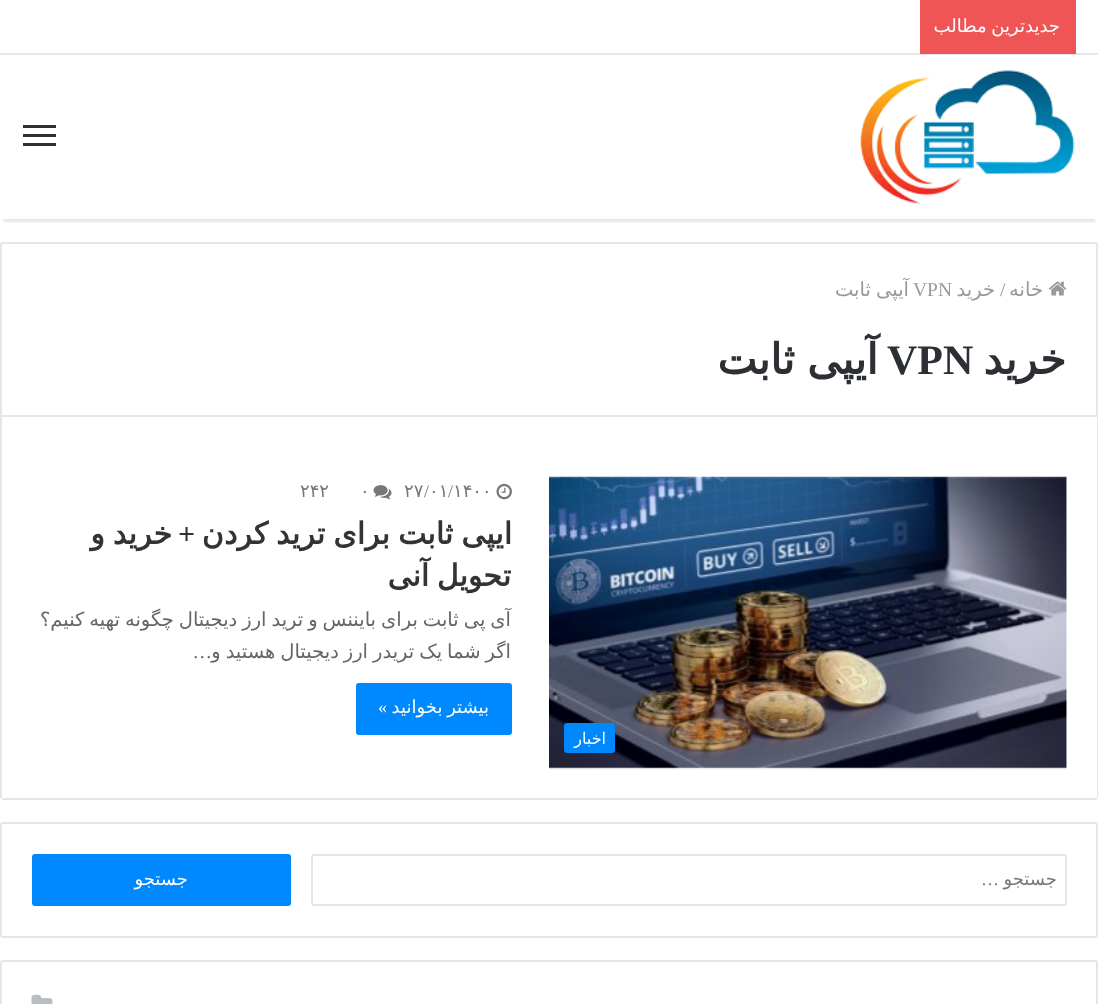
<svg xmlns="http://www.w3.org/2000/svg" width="1098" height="1004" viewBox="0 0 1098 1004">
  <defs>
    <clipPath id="clip1"><rect x="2" y="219" width="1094" height="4"/></clipPath>
    <filter id="blur1" x="-50%" y="-200%" width="200%" height="500%"><feGaussianBlur stdDeviation="1.5"/></filter>
  </defs>
  <rect width="100%" height="100%" fill="#ffffff"/>
  <rect x="0" y="53" width="1098" height="2" fill="#e6e6e6"/>
  <rect x="920" y="0" width="156" height="54" fill="#f05555"/>
  <text x="1060" y="32" word-spacing="-1" font-family="DejaVu Sans" font-size="18" direction="rtl" fill="#ffffff">جدیدترین مطالب</text>
  <g clip-path="url(#clip1)">
    <rect x="3" y="63" width="1092" height="159" fill="#000000" fill-opacity="0.1" filter="url(#blur1)"/>
  </g>
  <image x="860" y="70" width="215" height="134" href="img1.png"/>
  <rect x="23" y="134" width="33" height="3" fill="#2c2f34"/>
  <rect x="23" y="125" width="33" height="3" fill="#2c2f34"/>
  <rect x="23" y="143" width="33" height="3" fill="#2c2f34"/>
  <path d="M3 243H1095C1096 243 1097 244 1097 245V416H1V245C1 244 2 243 3 243Z" fill="none" stroke="#e6e6e6" stroke-width="2"/>
  <image x="1048" y="281" width="19" height="15" href="img2.png"/>
  <text x="1043" y="296" font-family="DejaVu Sans" font-size="19.5" direction="rtl" fill="#999999">خانه</text>
  <text x="1000" y="296" font-family="Liberation Serif" font-size="19.5" fill="#999999">/</text>
  <text x="995" y="296" font-family="DejaVu Sans" font-size="19.5" direction="rtl" fill="#999999">خرید</text>
  <text x="913" y="296" font-family="Liberation Serif" font-size="19.5" fill="#999999">VPN</text>
  <text x="909" y="296" word-spacing="-1" font-family="DejaVu Sans" font-size="19.5" direction="rtl" fill="#999999">آیپی ثابت</text>
  <text x="1066" y="374" font-family="DejaVu Sans" font-size="42" font-weight="bold" direction="rtl" fill="#2c2f34">خرید</text>
  <text x="887" y="374" font-family="Liberation Serif" font-size="42" font-weight="bold" fill="#2c2f34">VPN</text>
  <text x="878" y="374" word-spacing="-1" font-family="DejaVu Sans" font-size="42" font-weight="bold" direction="rtl" fill="#2c2f34">آیپی ثابت</text>
  <rect x="1097" y="417" width="1" height="381" fill="#e6e6e6"/>
  <rect x="2" y="798" width="1095" height="2" fill="#e6e6e6"/>
  <rect x="0" y="417" width="2" height="381" fill="#e6e6e6"/>
  <image x="496" y="483" width="16" height="17" href="img3.png"/>
  <text x="453" y="497" font-family="DejaVu Sans" font-size="18" fill="#777777">۱۴۰۰</text>
  <text x="448" y="497" font-family="Liberation Serif" font-size="18" fill="#777777">/</text>
  <text x="429" y="497" font-family="DejaVu Sans" font-size="18" fill="#777777">۰۱</text>
  <text x="424" y="497" font-family="Liberation Serif" font-size="18" fill="#777777">/</text>
  <text x="404" y="497" font-family="DejaVu Sans" font-size="18" fill="#777777">۲۷</text>
  <image x="373" y="485" width="19" height="15" href="img4.png"/>
  <text x="360" y="497" font-family="DejaVu Sans" font-size="18" fill="#777777">۰</text>
  <text x="300" y="497" font-family="DejaVu Sans" font-size="18" fill="#777777">۲۴۲</text>
  <text x="512" y="544" word-spacing="-1.5" font-family="DejaVu Sans" font-size="30" font-weight="bold" direction="rtl" fill="#333333">ایپی ثابت برای ترید کردن</text>
  <text x="195" y="544" font-family="Liberation Serif" font-size="30" font-weight="bold" direction="rtl" fill="#333333">+</text>
  <text x="172" y="544" word-spacing="-1.5" font-family="DejaVu Sans" font-size="30" font-weight="bold" direction="rtl" fill="#333333">خرید و</text>
  <text x="511" y="586" word-spacing="-2" font-family="DejaVu Sans" font-size="30" font-weight="bold" direction="rtl" fill="#333333">تحویل آنی</text>
  <text x="511" y="626" word-spacing="-1.25" font-family="DejaVu Sans" font-size="19.5" direction="rtl" fill="#666666">آی پی ثابت برای بایننس و ترید ارز دیجیتال چگونه تهیه کنیم؟</text>
  <text x="511" y="658" word-spacing="-1.25" font-family="DejaVu Sans" font-size="19.5" direction="rtl" fill="#666666">اگر شما یک تریدر ارز دیجیتال هستید و</text>
  <text x="212" y="658" font-family="Liberation Serif" font-size="19.5" direction="rtl" fill="#666666">…</text>
  <rect x="356" y="683" width="156" height="52" rx="3" fill="#0088ff"/>
  <text x="489" y="713" word-spacing="-1" font-family="DejaVu Sans" font-size="18" direction="rtl" fill="#ffffff">بیشتر بخوانید</text>
  <text x="387" y="713" font-family="Liberation Serif" font-size="18" direction="rtl" fill="#ffffff">»</text>
  <image x="549" y="476" width="518" height="294" href="img5.png"/>
  <rect x="564" y="723" width="51" height="30" rx="3" fill="#0088ff"/>
  <text x="606" y="744" font-family="DejaVu Sans" font-size="16" direction="rtl" fill="#ffffff">اخبار</text>
  <rect x="1" y="823" width="1096" height="114" rx="2" fill="none" stroke="#e6e6e6" stroke-width="2"/>
  <rect x="312" y="855" width="754" height="50" rx="2" fill="none" stroke="#e6e6e6" stroke-width="2"/>
  <text x="1057" y="885" font-family="DejaVu Sans" font-size="18" direction="rtl" fill="#777777">جستجو</text>
  <text x="999" y="885" font-family="Liberation Serif" font-size="18" direction="rtl" fill="#777777">…</text>
  <rect x="32" y="854" width="259" height="52" rx="3" fill="#0088ff"/>
  <text x="188" y="885" font-family="DejaVu Sans" font-size="18" direction="rtl" fill="#ffffff">جستجو</text>
  <rect x="1" y="961" width="1096" height="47" rx="2" fill="none" stroke="#e6e6e6" stroke-width="2"/>
  <image x="31" y="994" width="22" height="10" href="img6.png"/>
</svg>
